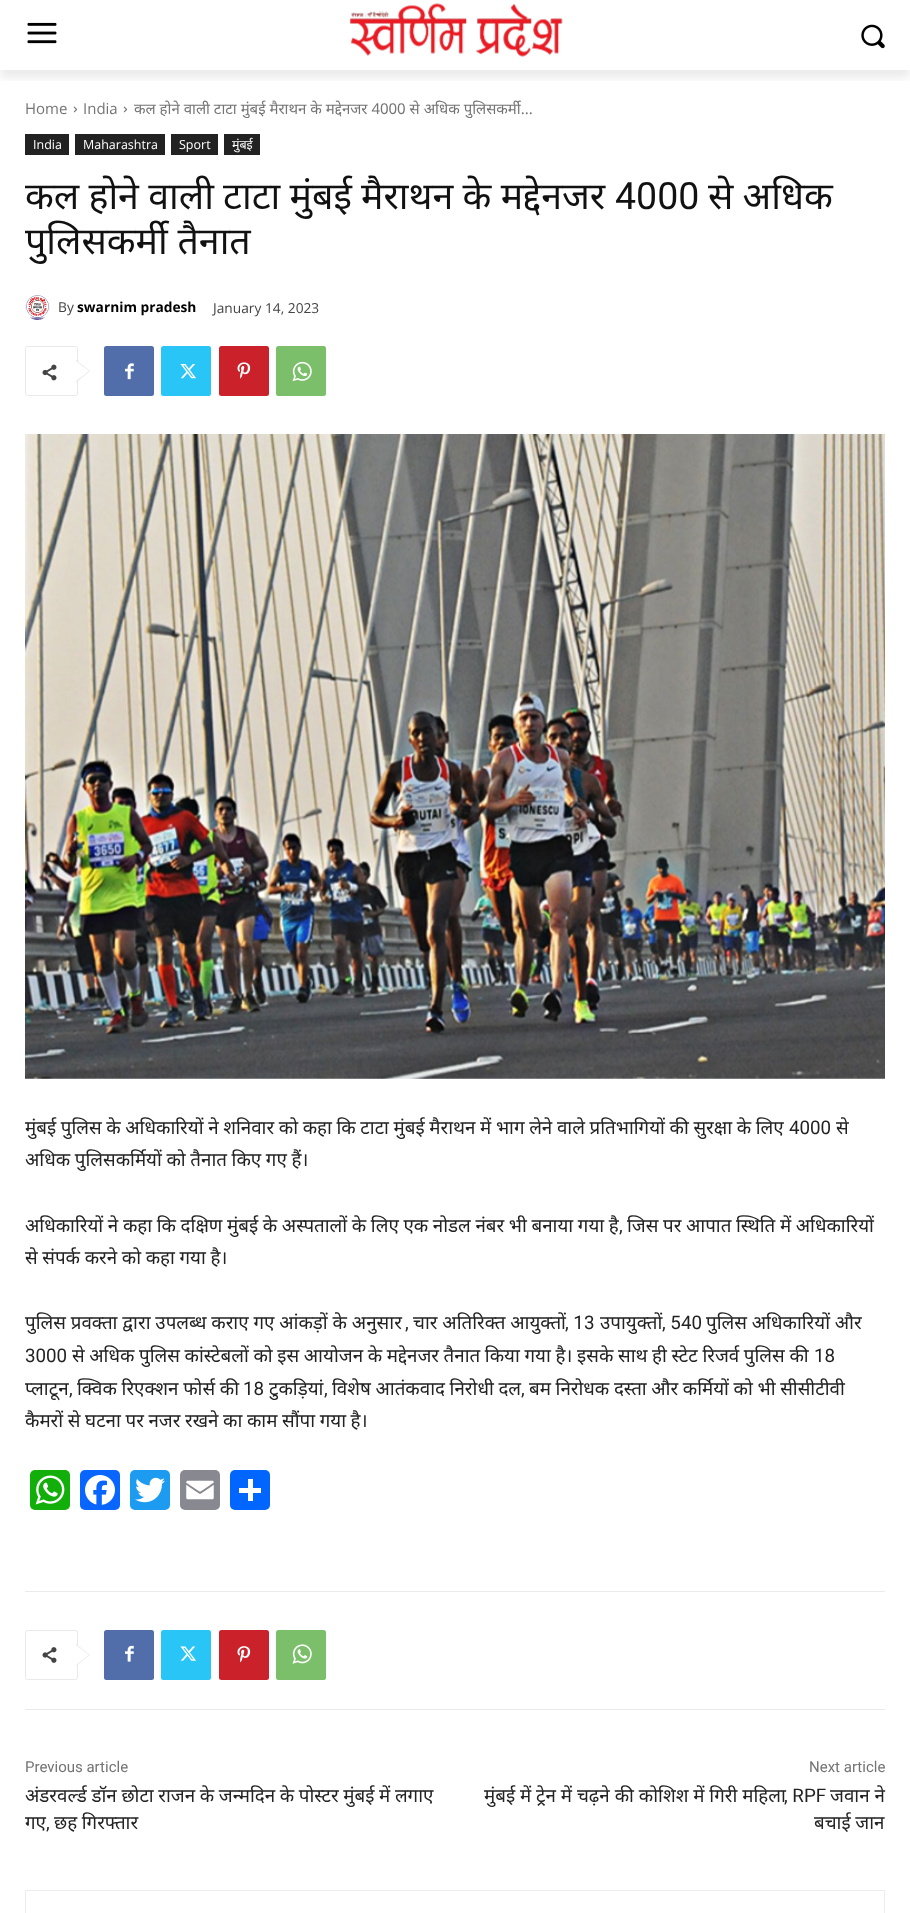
<svg xmlns="http://www.w3.org/2000/svg" width="910" height="1913" viewBox="0 0 910 1913">
  <defs>
    <clipPath id="clip1"><rect x="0" y="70" width="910" height="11"/></clipPath>
    <filter id="blur1" x="-50%" y="-200%" width="200%" height="500%"><feGaussianBlur stdDeviation="5"/></filter>
  </defs>
  <rect width="100%" height="100%" fill="#ffffff"/>
  <image x="27" y="22" width="30" height="22" href="img1.png"/>
  <image x="349" y="3" width="214" height="54" href="img2.png"/>
  <image x="861" y="24" width="24" height="25" href="img3.png"/>
  <g clip-path="url(#clip1)">
    <rect x="0" y="8" width="910" height="70" fill="#000000" fill-opacity="0.08" filter="url(#blur1)"/>
  </g>
  <text x="25" y="114" font-family="Open Sans" font-size="15" fill="#747474">Home</text>
  <image x="73" y="106" width="5" height="7" href="img4.png"/>
  <text x="83" y="114" font-family="Open Sans" font-size="15" fill="#747474">India</text>
  <image x="123" y="106" width="5" height="7" href="img4.png"/>
  <text x="134" y="114" font-family="Noto Sans" font-size="15" fill="#747474">कल होने वाली टाटा मुंबई मैराथन के मद्देनजर 4000 से अधिक पुलिसकर्मी...</text>
  <rect x="25" y="134" width="44" height="21" fill="#222222"/>
  <text x="33" y="149" font-family="Open Sans" font-size="12.5" fill="#ffffff">India</text>
  <rect x="75" y="134" width="90" height="21" fill="#222222"/>
  <text x="83" y="149" font-family="Open Sans" font-size="12.5" fill="#ffffff">Maharashtra</text>
  <rect x="171" y="134" width="47" height="21" fill="#222222"/>
  <text x="179" y="149" font-family="Open Sans" font-size="12.5" fill="#ffffff">Sport</text>
  <rect x="224" y="134" width="36" height="21" fill="#222222"/>
  <text x="232" y="149" font-family="Noto Sans" font-size="12.5" fill="#ffffff">मुंबई</text>
  <text x="25" y="209" word-spacing="-0.5" font-family="Noto Sans" font-size="37.5" fill="#111111">कल होने वाली टाटा मुंबई मैराथन के मद्देनजर</text>
  <text x="615" y="209" font-family="Roboto" font-size="37.5" fill="#111111">4000</text>
  <text x="708" y="209" word-spacing="-0.5" font-family="Noto Sans" font-size="37.5" fill="#111111">से अधिक</text>
  <text x="25" y="254" font-family="Noto Sans" font-size="37.5" fill="#111111">पुलिसकर्मी तैनात</text>
  <image x="25" y="295" width="25" height="25" href="img5.png"/>
  <text x="58" y="312" font-family="Open Sans" font-size="13.75" fill="#444444">By</text>
  <text x="77" y="312" font-family="Open Sans" font-size="13.75" font-weight="bold" fill="#000000">swarnim pradesh</text>
  <text x="213" y="313" font-family="Open Sans" font-size="13.75" fill="#444444">January 14, 2023</text>
  <rect x="25.5" y="346.5" width="52" height="49" rx="2" fill="none" stroke="#e9e9e9"/>
  <path d="M76 382.5V360L90 371Z" fill="#e9e9e9"/>
  <image x="42" y="364" width="15" height="17" href="img6.png"/>
  <path d="M76 381V361L89 371Z" fill="#ffffff"/>
  <rect x="104" y="346" width="50" height="50" rx="2.5" fill="#516eab"/>
  <image x="125" y="363" width="9" height="17" href="img7.png"/>
  <rect x="161" y="346" width="50" height="50" rx="2.5" fill="#29c5f6"/>
  <image x="180" y="364" width="16" height="15" href="img8.png"/>
  <rect x="219" y="346" width="50" height="50" rx="2.5" fill="#ca212a"/>
  <image x="237" y="362" width="14" height="17" href="img9.png"/>
  <rect x="276" y="346" width="50" height="50" rx="2.5" fill="#7bbf6a"/>
  <image x="292" y="361" width="20" height="21" href="img10.png"/>
  <image x="25" y="434" width="860" height="645" href="img11.png"/>
  <text x="25" y="1134" word-spacing="-0.25" font-family="Noto Sans" font-size="18.75" fill="#222222">मुंबई पुलिस के अधिकारियों ने शनिवार को कहा कि टाटा मुंबई मैराथन में भाग लेने वाले प्रतिभागियों की सुरक्षा के लिए</text>
  <text x="789" y="1134" font-family="Roboto" font-size="18.75" fill="#222222">4000</text>
  <text x="836" y="1134" font-family="Noto Sans" font-size="18.75" fill="#222222">से</text>
  <text x="25" y="1166" word-spacing="-0.25" font-family="Noto Sans" font-size="18.75" fill="#222222">अधिक पुलिसकर्मियों को तैनात किए गए हैं।</text>
  <text x="25" y="1232" word-spacing="-0.25" font-family="Noto Sans" font-size="18.75" fill="#222222">अधिकारियों ने कहा कि दक्षिण मुंबई के अस्पतालों के लिए एक नोडल नंबर भी बनाया गया है</text>
  <text x="619" y="1232" font-family="Roboto" font-size="18.75" fill="#222222">,</text>
  <text x="627" y="1232" word-spacing="-0.25" font-family="Noto Sans" font-size="18.75" fill="#222222">जिस पर आपात स्थिति में अधिकारियों</text>
  <text x="25" y="1264" word-spacing="-0.25" font-family="Noto Sans" font-size="18.75" fill="#222222">से संपर्क करने को कहा गया है।</text>
  <text x="25" y="1329" font-family="Noto Sans" font-size="18.75" fill="#222222">पुलिस प्रवक्ता द्वारा उपलब्ध कराए गए आंकड़ों के अनुसार</text>
  <text x="405" y="1329" font-family="Roboto" font-size="18.75" fill="#222222">,</text>
  <text x="413" y="1329" font-family="Noto Sans" font-size="18.75" fill="#222222">चार अतिरिक्त आयुक्तों</text>
  <text x="565" y="1329" font-family="Roboto" font-size="18.75" fill="#222222">, 13</text>
  <text x="600" y="1329" font-family="Noto Sans" font-size="18.75" fill="#222222">उपायुक्तों</text>
  <text x="662" y="1329" font-family="Roboto" font-size="18.75" fill="#222222">, 540</text>
  <text x="706" y="1329" font-family="Noto Sans" font-size="18.75" fill="#222222">पुलिस अधिकारियों और</text>
  <text x="25" y="1362" font-family="Roboto" font-size="18.75" fill="#222222">3000</text>
  <text x="72" y="1362" word-spacing="-0.25" font-family="Noto Sans" font-size="18.75" fill="#222222">से अधिक पुलिस कांस्टेबलों को इस आयोजन के मद्देनजर तैनात किया गया है। इसके साथ ही स्टेट रिजर्व पुलिस की</text>
  <text x="814" y="1362" font-family="Roboto" font-size="18.75" fill="#222222">18</text>
  <text x="25" y="1395" font-family="Noto Sans" font-size="18.75" fill="#222222">प्लाटून</text>
  <text x="69" y="1395" font-family="Roboto" font-size="18.75" fill="#222222">,</text>
  <text x="77" y="1395" word-spacing="-0.25" font-family="Noto Sans" font-size="18.75" fill="#222222">क्विक रिएक्शन फोर्स की</text>
  <text x="243" y="1395" font-family="Roboto" font-size="18.75" fill="#222222">18</text>
  <text x="269" y="1395" font-family="Noto Sans" font-size="18.75" fill="#222222">टुकड़ियां</text>
  <text x="324" y="1395" font-family="Roboto" font-size="18.75" fill="#222222">,</text>
  <text x="332" y="1395" word-spacing="-0.25" font-family="Noto Sans" font-size="18.75" fill="#222222">विशेष आतंकवाद निरोधी दल</text>
  <text x="521" y="1395" font-family="Roboto" font-size="18.75" fill="#222222">,</text>
  <text x="529" y="1395" word-spacing="-0.25" font-family="Noto Sans" font-size="18.75" fill="#222222">बम निरोधक दस्ता और कर्मियों को भी सीसीटीवी</text>
  <text x="25" y="1427" word-spacing="-0.25" font-family="Noto Sans" font-size="18.75" fill="#222222">कैमरों से घटना पर नजर रखने का काम सौंपा गया है।</text>
  <rect x="30" y="1470" width="40" height="40" rx="5" fill="#12af0a"/>
  <image x="35" y="1475" width="30" height="30" href="img12.png"/>
  <rect x="80" y="1470" width="40" height="40" rx="5" fill="#0866ff"/>
  <image x="85" y="1475" width="30" height="30" href="img13.png"/>
  <rect x="130" y="1470" width="40" height="40" rx="5" fill="#1d9bf0"/>
  <image x="135" y="1477" width="30" height="26" href="img14.png"/>
  <rect x="180" y="1470" width="40" height="40" rx="5" fill="#888990"/>
  <image x="186" y="1480" width="28" height="20" href="img15.png"/>
  <rect x="230" y="1470" width="40" height="40" rx="5" fill="#0166ff"/>
  <rect x="248" y="1479" width="5" height="22" fill="#ffffff"/>
  <rect x="239" y="1488" width="22" height="5" fill="#ffffff"/>
  <rect x="25" y="1591" width="860" height="1" fill="#ebebeb"/>
  <rect x="25.5" y="1630.5" width="52" height="49" rx="2" fill="none" stroke="#e9e9e9"/>
  <path d="M76 1666V1644L90 1655Z" fill="#e9e9e9"/>
  <image x="42" y="1647" width="15" height="16" href="img16.png"/>
  <path d="M76 1665V1645L89 1655Z" fill="#ffffff"/>
  <rect x="104" y="1630" width="50" height="50" rx="2.5" fill="#516eab"/>
  <image x="125" y="1645" width="9" height="17" href="img17.png"/>
  <rect x="161" y="1630" width="50" height="50" rx="2.5" fill="#29c5f6"/>
  <image x="180" y="1646" width="16" height="15" href="img18.png"/>
  <rect x="219" y="1630" width="50" height="50" rx="2.5" fill="#ca212a"/>
  <image x="237" y="1646" width="14" height="17" href="img19.png"/>
  <rect x="276" y="1630" width="50" height="50" rx="2.5" fill="#7bbf6a"/>
  <image x="292" y="1644" width="20" height="20" href="img20.png"/>
  <rect x="25" y="1709" width="860" height="1" fill="#ebebeb"/>
  <text x="25" y="1772" font-family="Roboto" font-size="15" fill="#747474">Previous article</text>
  <text x="25" y="1802" word-spacing="-0.25" font-family="Noto Sans" font-size="18.75" fill="#222222">अंडरवर्ल्ड डॉन छोटा राजन के जन्मदिन के पोस्टर मुंबई में लगाए</text>
  <text x="25" y="1829" font-family="Noto Sans" font-size="18.75" fill="#222222">गए</text>
  <text x="46" y="1829" font-family="Roboto" font-size="18.75" fill="#222222">,</text>
  <text x="54" y="1829" word-spacing="-0.25" font-family="Noto Sans" font-size="18.75" fill="#222222">छह गिरफ्तार</text>
  <text x="809" y="1772" font-family="Roboto" font-size="15" fill="#747474">Next article</text>
  <text x="484" y="1802" font-family="Noto Sans" font-size="18.75" fill="#222222">मुंबई में ट्रेन में चढ़ने की कोशिश में गिरी महिला</text>
  <text x="784" y="1802" font-family="Roboto" font-size="18.75" fill="#222222">, RPF</text>
  <text x="830" y="1802" font-family="Noto Sans" font-size="18.75" fill="#222222">जवान ने</text>
  <text x="814" y="1829" word-spacing="-0.25" font-family="Noto Sans" font-size="18.75" fill="#222222">बचाई जान</text>
  <rect x="25.5" y="1890.5" width="859" height="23" fill="none" stroke="#ededed"/>
</svg>
